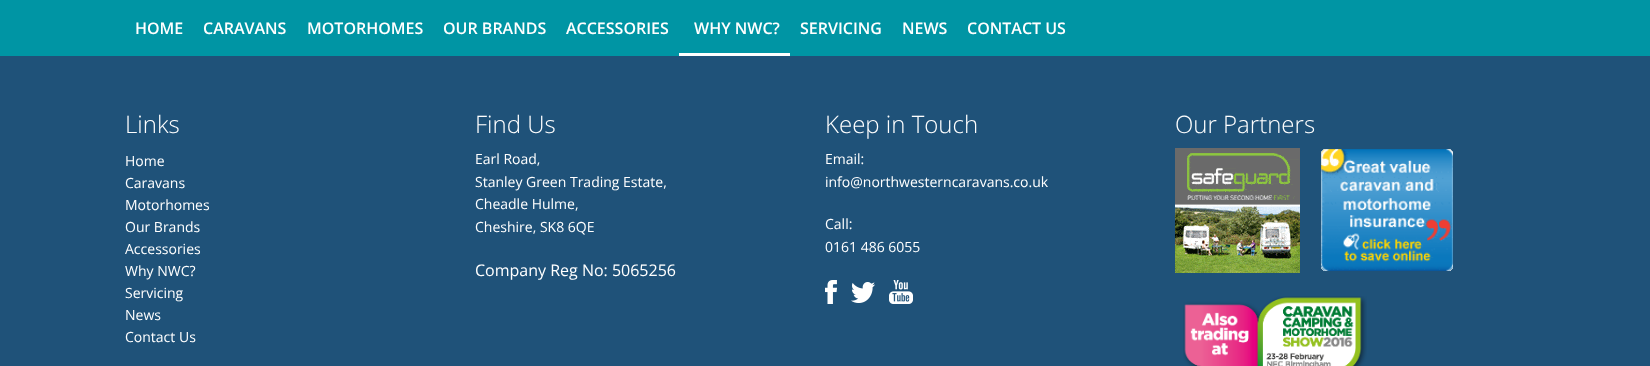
<svg xmlns="http://www.w3.org/2000/svg" width="1650" height="366" viewBox="0 0 1650 366">
  <rect width="100%" height="100%" fill="#1f5279"/>
  <rect x="0" y="0" width="1650" height="56" fill="#0095a4"/>
  <text x="135" y="34" font-family="Open Sans" font-size="16" font-weight="600" fill="#ffffff">HOME</text>
  <text x="203" y="34" font-family="Open Sans" font-size="16" font-weight="600" fill="#ffffff">CARAVANS</text>
  <text x="307" y="34" font-family="Open Sans" font-size="16" font-weight="600" fill="#ffffff">MOTORHOMES</text>
  <text x="443" y="34" font-family="Open Sans" font-size="16" font-weight="600" fill="#ffffff">OUR BRANDS</text>
  <text x="566" y="34" font-family="Open Sans" font-size="16" font-weight="600" fill="#ffffff">ACCESSORIES</text>
  <rect x="679" y="53" width="111" height="3" fill="#ffffff"/>
  <text x="694" y="34" font-family="Open Sans" font-size="16" font-weight="600" fill="#ffffff">WHY NWC?</text>
  <text x="800" y="34" font-family="Open Sans" font-size="16" font-weight="600" fill="#ffffff">SERVICING</text>
  <text x="902" y="34" font-family="Open Sans" font-size="16" font-weight="600" fill="#ffffff">NEWS</text>
  <text x="967" y="34" font-family="Open Sans" font-size="16" font-weight="600" fill="#ffffff">CONTACT US</text>
  <text x="125" y="133" font-family="Open Sans" font-size="24" font-weight="300" fill="#ffffff">Links</text>
  <text x="125" y="166" font-family="Open Sans" font-size="14" fill="#ffffff">Home</text>
  <text x="125" y="188" font-family="Open Sans" font-size="14" fill="#ffffff">Caravans</text>
  <text x="125" y="210" font-family="Open Sans" font-size="14" fill="#ffffff">Motorhomes</text>
  <text x="125" y="232" font-family="Open Sans" font-size="14" fill="#ffffff">Our Brands</text>
  <text x="125" y="254" font-family="Open Sans" font-size="14" fill="#ffffff">Accessories</text>
  <text x="125" y="276" font-family="Open Sans" font-size="14" fill="#ffffff">Why NWC?</text>
  <text x="125" y="298" font-family="Open Sans" font-size="14" fill="#ffffff">Servicing</text>
  <text x="125" y="320" font-family="Open Sans" font-size="14" fill="#ffffff">News</text>
  <text x="125" y="342" font-family="Open Sans" font-size="14" fill="#ffffff">Contact Us</text>
  <text x="475" y="133" font-family="Open Sans" font-size="24" font-weight="300" fill="#ffffff">Find Us</text>
  <text x="475" y="164" font-family="Open Sans" font-size="14" fill="#ffffff">Earl Road,</text>
  <text x="475" y="187" font-family="Open Sans" font-size="14" fill="#ffffff">Stanley Green Trading Estate,</text>
  <text x="475" y="209" font-family="Open Sans" font-size="14" fill="#ffffff">Cheadle Hulme,</text>
  <text x="475" y="232" font-family="Open Sans" font-size="14" fill="#ffffff">Cheshire, SK8 6QE</text>
  <text x="475" y="276" font-family="Open Sans" font-size="16" fill="#ffffff">Company Reg No: 5065256</text>
  <text x="825" y="133" font-family="Open Sans" font-size="24" font-weight="300" fill="#ffffff">Keep in Touch</text>
  <text x="825" y="164" font-family="Open Sans" font-size="14" fill="#ffffff">Email:</text>
  <text x="825" y="187" font-family="Open Sans" font-size="14" fill="#ffffff">info@northwesterncaravans.co.uk</text>
  <text x="825" y="229" font-family="Open Sans" font-size="14" fill="#ffffff">Call:</text>
  <text x="825" y="252" font-family="Open Sans" font-size="14" fill="#ffffff">0161 486 6055</text>
  <image x="825" y="280" width="12" height="24" href="img1.png"/>
  <image x="851" y="282" width="24" height="21" href="img2.png"/>
  <image x="889" y="280" width="24" height="24" href="img3.png"/>
  <text x="1175" y="133" font-family="Open Sans" font-size="24" font-weight="300" fill="#ffffff">Our Partners</text>
  <image x="1175" y="148" width="125" height="125" href="img4.png"/>
  <image x="1321" y="149" width="132" height="122" href="img5.png"/>
  <image x="1183" y="296" width="184" height="70" href="img6.png"/>
</svg>
